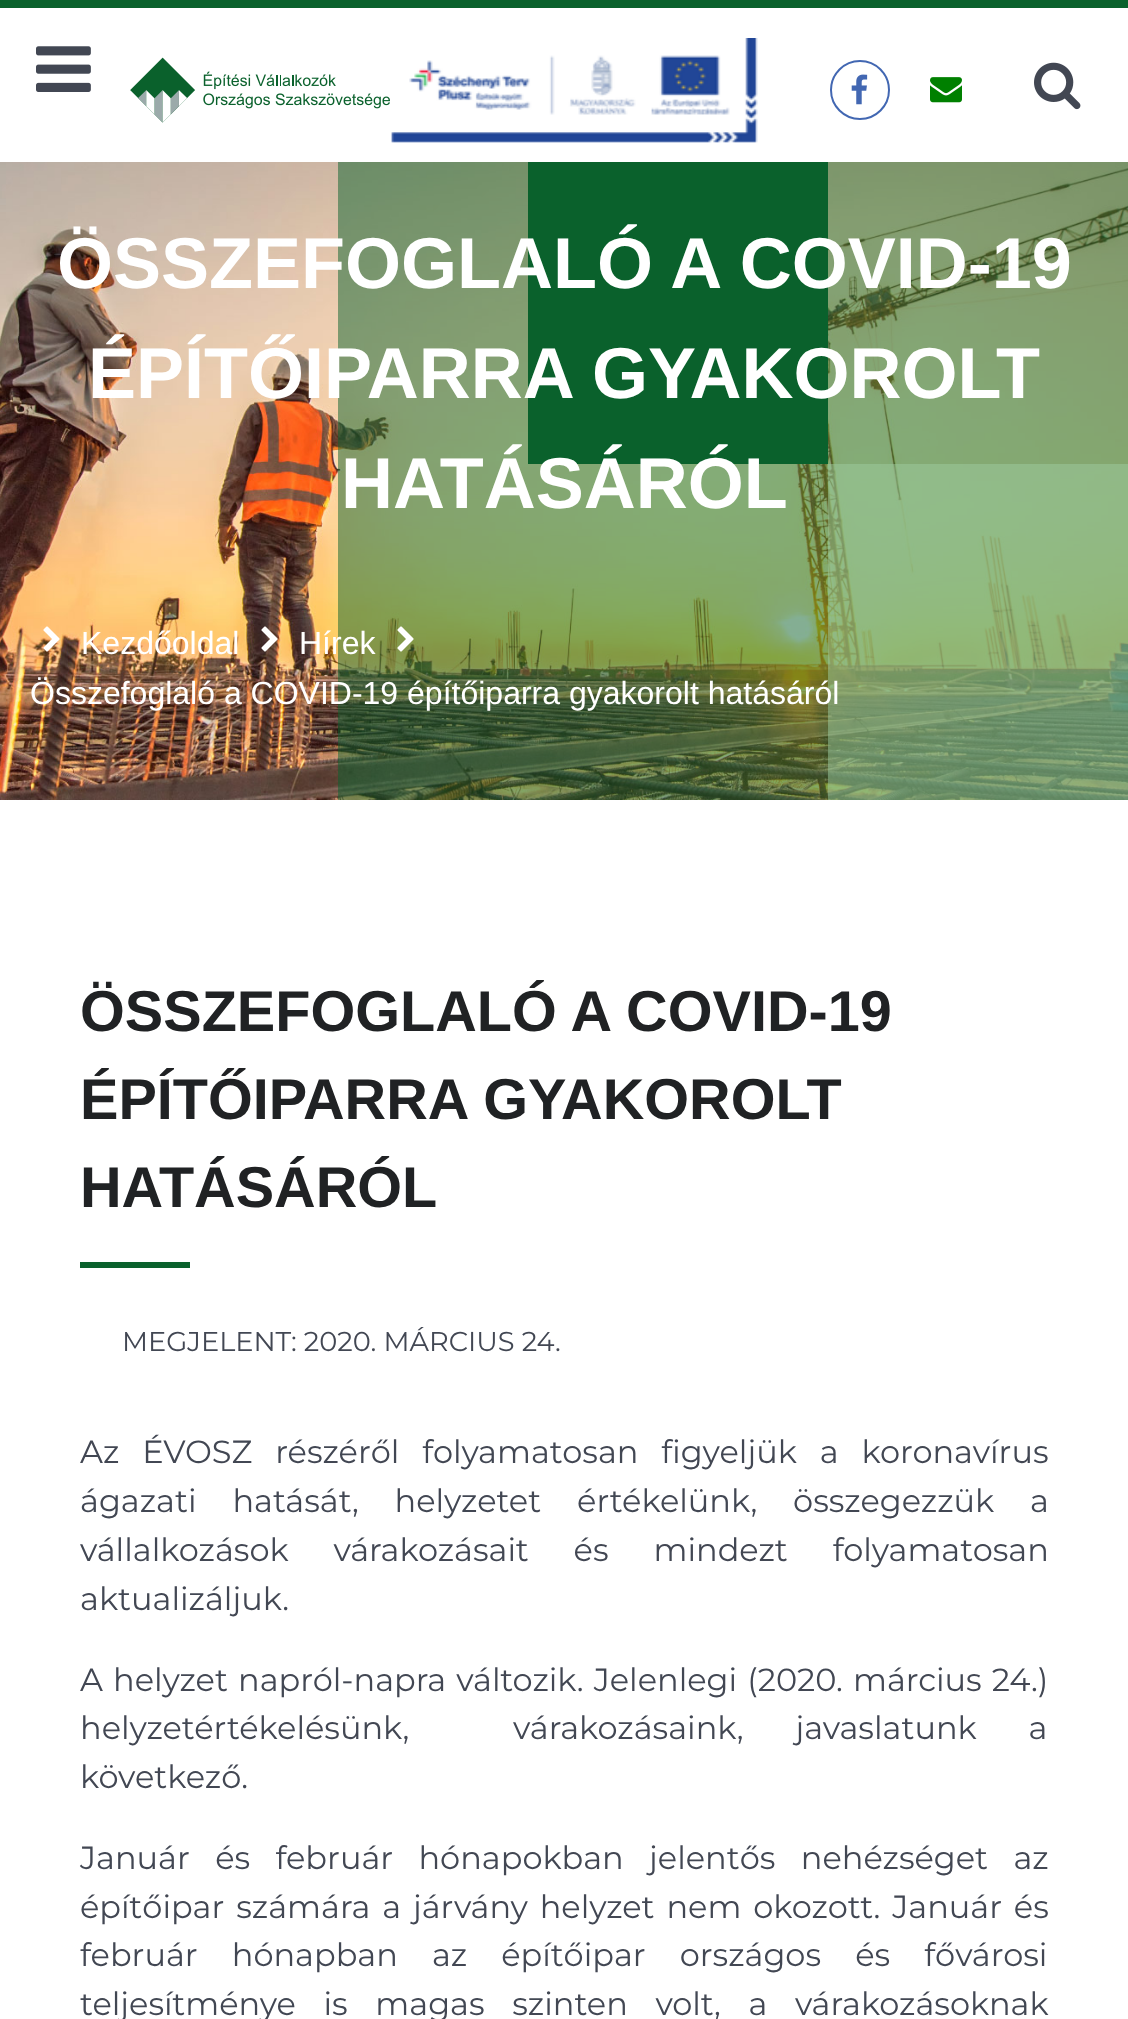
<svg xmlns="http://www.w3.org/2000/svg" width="1128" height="2019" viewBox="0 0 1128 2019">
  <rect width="100%" height="100%" fill="#ffffff"/>
  <rect x="0" y="0" width="1128" height="8" fill="#0a612c"/>
  <image x="130" y="57" width="260" height="66" href="img1.png"/>
  <image x="391" y="38" width="367" height="105" href="img2.png"/>
  <circle cx="860" cy="90" r="29" fill="none" stroke="#4267b2" stroke-width="2"/>
  <image x="851" y="74" width="17" height="31" href="img3.png"/>
  <image x="930" y="77" width="32" height="26" href="img4.png"/>
  <image x="1034" y="62" width="47" height="48" href="img5.png"/>
  <image x="36" y="46" width="55" height="46" href="img6.png"/>
  <image x="0" y="162" width="1128" height="638" href="img7.png"/>
  <rect x="338" y="162" width="790" height="638" fill="#0a612d" fill-opacity="0.5"/>
  <rect x="528" y="162" width="300" height="302" fill="#0a612c"/>
  <rect x="828" y="464" width="300" height="336" fill="#9dcc9f" fill-opacity="0.5"/>
  <text x="57" y="288" font-family="Liberation Sans" font-size="72" font-weight="bold" fill="#ffffff">ÖSSZEFOGLALÓ A COVID-19</text>
  <text x="88" y="398" font-family="Liberation Sans" font-size="72" font-weight="bold" fill="#ffffff">ÉPÍTŐIPARRA GYAKOROLT</text>
  <text x="341" y="508" font-family="Liberation Sans" font-size="72" font-weight="bold" fill="#ffffff">HATÁSÁRÓL</text>
  <image x="43" y="626" width="17" height="26" href="img8.png"/>
  <text x="81" y="654" font-family="Liberation Sans" font-size="32" fill="#ffffff">Kezdőoldal</text>
  <image x="261" y="626" width="17" height="26" href="img9.png"/>
  <text x="299" y="654" font-family="Liberation Sans" font-size="32" fill="#ffffff">Hírek</text>
  <image x="397" y="626" width="17" height="26" href="img10.png"/>
  <text x="30" y="704" font-family="Liberation Sans" font-size="32" fill="#ffffff">Összefoglaló a COVID-19 építőiparra gyakorolt hatásáról</text>
  <text x="80" y="1031" font-family="Liberation Sans" font-size="57.6" font-weight="bold" fill="#202224">ÖSSZEFOGLALÓ A COVID-19</text>
  <text x="80" y="1119" font-family="Liberation Sans" font-size="57.6" font-weight="bold" fill="#202224">ÉPÍTŐIPARRA GYAKOROLT</text>
  <text x="80" y="1207" font-family="Liberation Sans" font-size="57.6" font-weight="bold" fill="#202224">HATÁSÁRÓL</text>
  <rect x="80" y="1262" width="110" height="6" fill="#0a612c"/>
  <text x="122" y="1351" font-family="Montserrat" font-size="27.25" fill="#424753">MEGJELENT: 2020. MÁRCIUS 24.</text>
  <text x="80" y="1463" word-spacing="14.5" font-family="Montserrat" font-size="32" fill="#424753">Az ÉVOSZ részéről folyamatosan figyeljük a koronavírus</text>
  <text x="80" y="1512" word-spacing="27.5" font-family="Montserrat" font-size="32" fill="#424753">ágazati hatását, helyzetet értékelünk, összegezzük a</text>
  <text x="80" y="1561" word-spacing="36.5" font-family="Montserrat" font-size="32" fill="#424753">vállalkozások várakozásait és mindezt folyamatosan</text>
  <text x="80" y="1610" font-family="Montserrat" font-size="32" fill="#424753">aktualizáljuk.</text>
  <text x="80" y="1691" word-spacing="1.75" font-family="Montserrat" font-size="32" fill="#424753">A helyzet napról-napra változik. Jelenlegi (2020. március 24.)</text>
  <text x="80" y="1739" word-spacing="43.5" font-family="Montserrat" font-size="32" fill="#424753" xml:space="preserve">helyzetértékelésünk,  várakozásaink, javaslatunk a</text>
  <text x="80" y="1788" font-family="Montserrat" font-size="32" fill="#424753">következő.</text>
  <text x="80" y="1869" word-spacing="17" font-family="Montserrat" font-size="32" fill="#424753">Január és február hónapokban jelentős nehézséget az</text>
  <text x="80" y="1918" word-spacing="3.5" font-family="Montserrat" font-size="32" fill="#424753">építőipar számára a járvány helyzet nem okozott. Január és</text>
  <text x="80" y="1966" word-spacing="25.75" font-family="Montserrat" font-size="32" fill="#424753">február hónapban az építőipar országos és fővárosi</text>
  <text x="80" y="2015" word-spacing="19.25" font-family="Montserrat" font-size="32" fill="#424753">teljesítménye is magas szinten volt, a várakozásoknak</text>
</svg>
